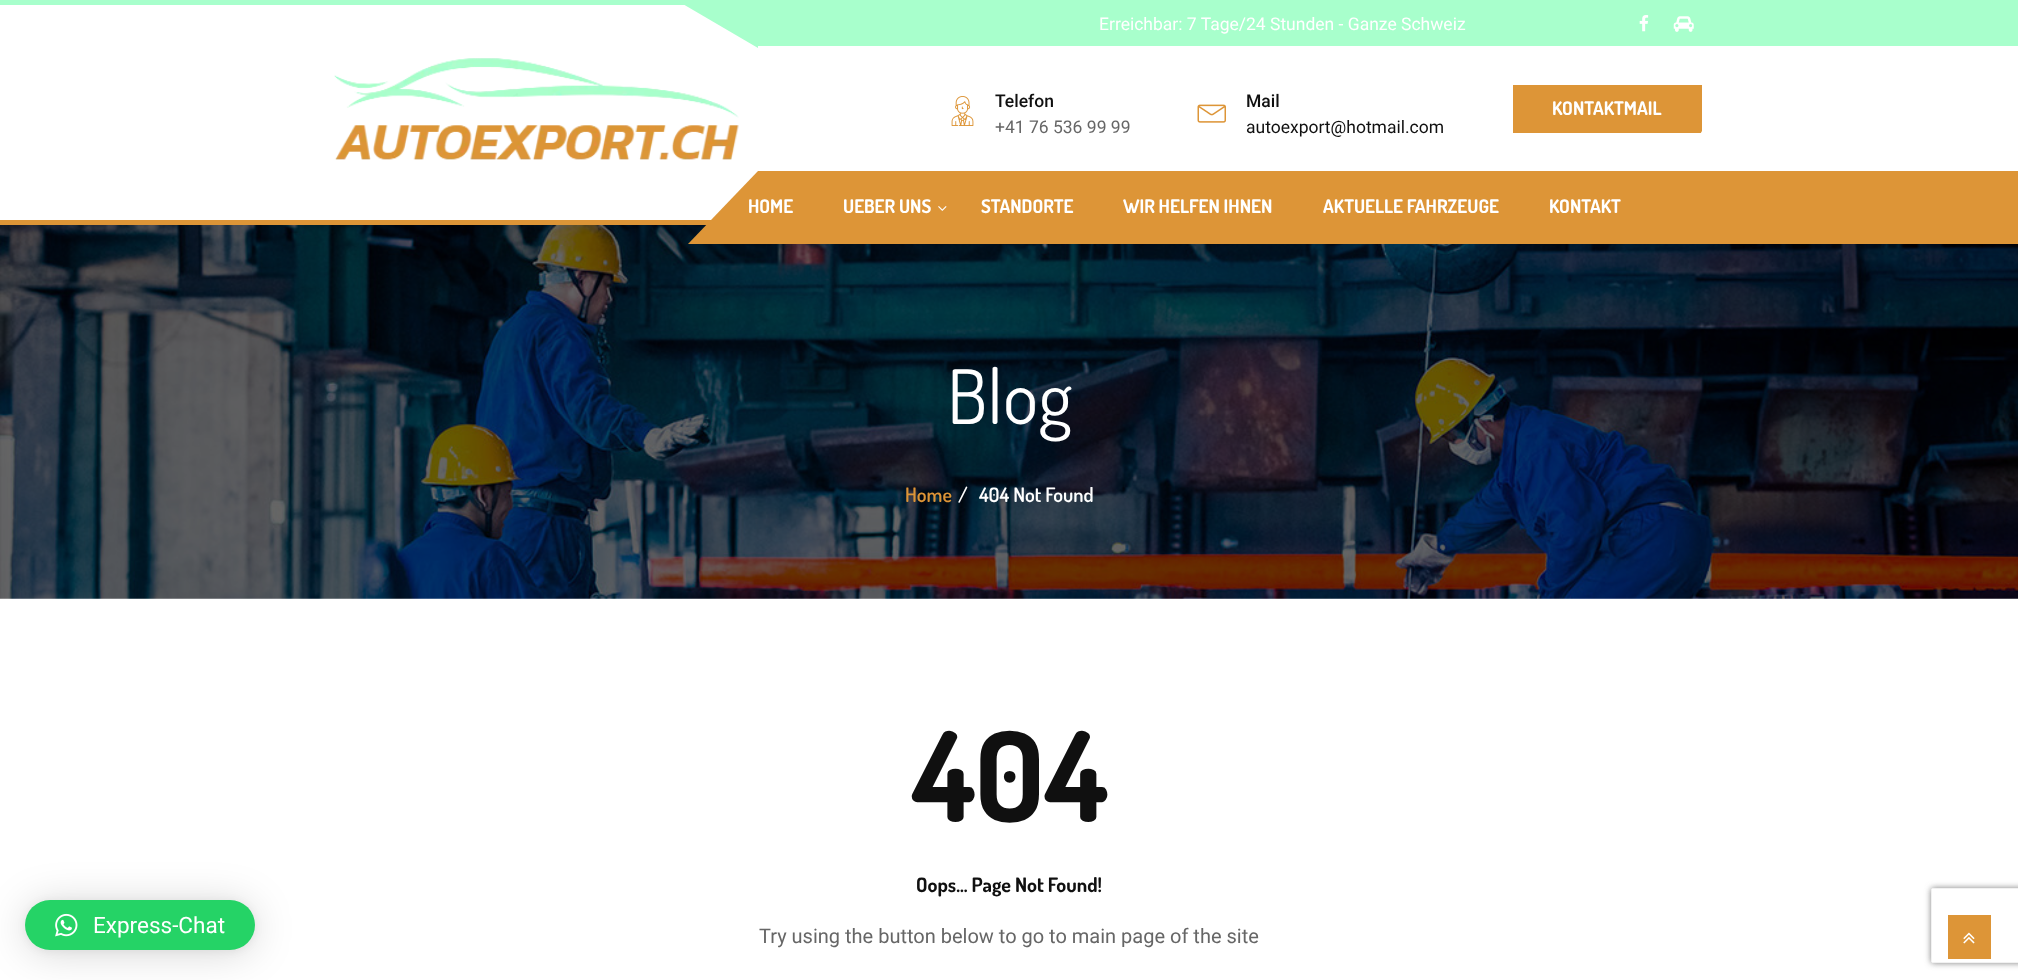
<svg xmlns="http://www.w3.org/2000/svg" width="2018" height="980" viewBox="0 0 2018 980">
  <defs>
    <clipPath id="clip1"><rect x="1513" y="85" width="190" height="48"/></clipPath>
    <clipPath id="clip2"><path d="M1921 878H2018V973H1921ZM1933.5 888H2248.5C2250 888 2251 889 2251 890.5V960.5C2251 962 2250 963 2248.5 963H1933.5C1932 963 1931 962 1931 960.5V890.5C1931 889 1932 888 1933.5 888Z" clip-rule="evenodd"/></clipPath>
    <filter id="blur1" x="-50%" y="-200%" width="200%" height="500%"><feGaussianBlur stdDeviation="3"/></filter>
    <filter id="blur2" x="-50%" y="-200%" width="200%" height="500%"><feGaussianBlur stdDeviation="20"/></filter>
    <filter id="blur3" x="-50%" y="-200%" width="200%" height="500%"><feGaussianBlur stdDeviation="4"/></filter>
  </defs>
  <rect width="100%" height="100%" fill="#ffffff"/>
  <rect x="0" y="0" width="2018" height="5" fill="#a8ffcc"/>
  <path d="M758 0V48L676 0Z" fill="#a8ffcc"/>
  <rect x="758" y="5" width="1260" height="41" fill="#a8ffcc"/>
  <text x="1099" y="30" font-family="Roboto" font-size="17.5" fill="#ffffff">Erreichbar: 7 Tage/24 Stunden - Ganze Schweiz</text>
  <image x="1639" y="15" width="10" height="17" href="img1.png"/>
  <image x="1673" y="16" width="21" height="16" href="img2.png"/>
  <image x="334" y="58" width="405" height="102" href="img3.png"/>
  <image x="951" y="96" width="23" height="30" href="img4.png"/>
  <text x="995" y="107" font-family="Roboto" font-size="17.5" font-weight="500" fill="#101010">Telefon</text>
  <text x="995" y="133" font-family="Roboto" font-size="17.5" fill="#666666">+41 76 536 99 99</text>
  <image x="1197" y="104" width="29" height="19" href="img5.png"/>
  <text x="1246" y="107" font-family="Roboto" font-size="17.5" font-weight="500" fill="#101010">Mail</text>
  <text x="1246" y="133" font-family="Roboto" font-size="17.5" fill="#101010">autoexport@hotmail.com</text>
  <g clip-path="url(#clip1)">
    <path d="M1512 61V156H1687L1702 131V61Z" fill="#dd9537" fill-rule="evenodd"/>
  </g>
  <text x="1552" y="115" font-family="Dosis" font-size="18.75" font-weight="bold" fill="#ffffff">KONTAKTMAIL</text>
  <rect x="0" y="220" width="711" height="5" fill="#dd9537"/>
  <image x="0" y="225" width="2018" height="374" href="img7.png"/>
  <path d="M758 171V244H688Z" fill="#dd9537"/>
  <rect x="758" y="171" width="1260" height="73" fill="#dd9537"/>
  <text x="748" y="213" font-family="Dosis" font-size="18.75" font-weight="bold" fill="#ffffff">HOME</text>
  <text x="843" y="213" font-family="Dosis" font-size="18.75" font-weight="bold" fill="#ffffff">UEBER UNS</text>
  <image x="938" y="206" width="9" height="5" href="img6.png"/>
  <text x="981" y="213" font-family="Dosis" font-size="18.75" font-weight="bold" fill="#ffffff">STANDORTE</text>
  <text x="1123" y="213" font-family="Dosis" font-size="18.75" font-weight="bold" fill="#ffffff">WIR HELFEN IHNEN</text>
  <text x="1323" y="213" font-family="Dosis" font-size="18.75" font-weight="bold" fill="#ffffff">AKTUELLE FAHRZEUGE</text>
  <text x="1549" y="213" font-family="Dosis" font-size="18.75" font-weight="bold" fill="#ffffff">KONTAKT</text>
  <text x="947" y="424" font-family="Dosis" font-size="75" fill="#ffffff">Blog</text>
  <text x="905" y="502" font-family="Dosis" font-size="20" font-weight="600" fill="#dd9537">Home</text>
  <text x="958" y="502" font-family="Dosis" font-size="20" font-weight="600" fill="#ffffff">/</text>
  <text x="979" y="502" font-family="Dosis" font-size="20" font-weight="600" fill="#ffffff">404 Not Found</text>
  <text x="912" y="822" font-family="Dosis" font-size="125" font-weight="bold" fill="#101010">404</text>
  <text x="916" y="892" font-family="Dosis" font-size="20" font-weight="bold" fill="#101010">Oops... Page Not Found!</text>
  <text x="759" y="943" font-family="Roboto" font-size="20" fill="#666666">Try using the button below to go to main page of the site</text>
  <g clip-path="url(#clip2)">
    <rect x="1931" y="888" width="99" height="75" rx="2.5" fill="#808080" filter="url(#blur1)"/>
  </g>
  <path d="M1934 888C1932 888 1931 889 1931 890V960C1931 962 1932 963 1934 963H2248C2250 963 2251 962 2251 960V890C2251 889 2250 888 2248 888ZM1932 889V962H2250V889Z" fill="#f1f1f1" fill-rule="evenodd"/>
  <rect x="25" y="903" width="230" height="50" rx="25" fill="#000000" fill-opacity="0.16" filter="url(#blur2)"/>
  <rect x="25" y="901" width="230" height="50" rx="25" fill="#000000" fill-opacity="0.06" filter="url(#blur3)"/>
  <rect x="25" y="900" width="230" height="50" rx="25" fill="#25d366"/>
  <image x="55" y="913" width="23" height="24" href="img8.png"/>
  <text x="93" y="933" font-family="Roboto" font-size="22.5" fill="#ffffff">Express-Chat</text>
  <rect x="1948" y="915" width="43" height="44" fill="#dd9537"/>
  <image x="1963" y="932" width="12" height="12" href="img9.png"/>
</svg>
